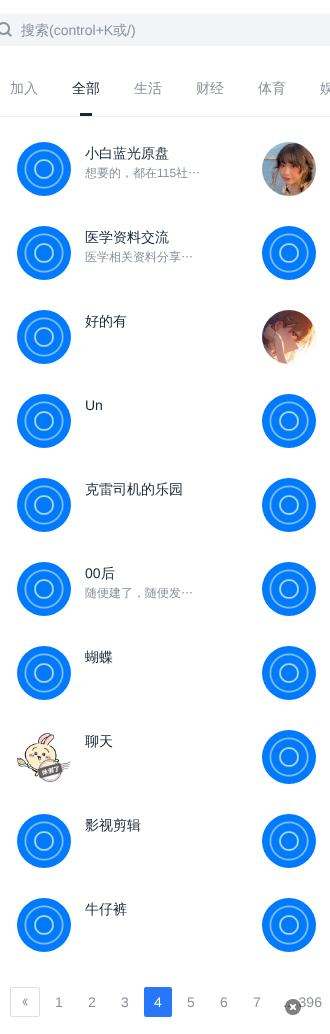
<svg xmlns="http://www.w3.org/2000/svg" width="330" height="1034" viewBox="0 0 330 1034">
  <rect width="100%" height="100%" fill="#ffffff"/>
  <rect x="0" y="14" width="330" height="32" fill="#f2f4f8"/>
  <image x="0" y="22" width="12" height="15" href="img1.png"/>
  <text x="21" y="35" font-family="WenQuanYi Zen Hei" font-size="14" font-weight="500" fill="#8a929b">搜索</text>
  <text x="49" y="35" font-family="Liberation Sans" font-size="14" fill="#8a929b">(control+K</text>
  <text x="113" y="35" font-family="WenQuanYi Zen Hei" font-size="14" font-weight="500" fill="#8a929b">或</text>
  <text x="127" y="35" font-family="Liberation Sans" font-size="14" fill="#8a929b">/)</text>
  <text x="10" y="93" font-family="WenQuanYi Zen Hei" font-size="14" font-weight="500" fill="#8a929b">加入</text>
  <text x="72" y="93" font-family="WenQuanYi Zen Hei" font-size="14" font-weight="500" fill="#1a2734">全部</text>
  <rect x="80" y="113" width="12" height="3" fill="#1a2734"/>
  <text x="134" y="93" font-family="WenQuanYi Zen Hei" font-size="14" font-weight="500" fill="#8a929b">生活</text>
  <text x="196" y="93" font-family="WenQuanYi Zen Hei" font-size="14" font-weight="500" fill="#8a929b">财经</text>
  <text x="258" y="93" font-family="WenQuanYi Zen Hei" font-size="14" font-weight="500" fill="#8a929b">体育</text>
  <text x="320" y="93" font-family="WenQuanYi Zen Hei" font-size="14" font-weight="500" fill="#8a929b">娱</text>
  <rect x="0" y="116" width="330" height="1" fill="#edeeef"/>
  <image x="17" y="142" width="54" height="54" href="img2.png"/>
  <text x="85" y="158" font-family="WenQuanYi Zen Hei" font-size="14" font-weight="500" fill="#1a2734">小白蓝光原盘</text>
  <text x="85" y="177" font-family="WenQuanYi Zen Hei" font-size="12" font-weight="500" fill="#8a929b">想要的，都在</text>
  <text x="157" y="177" font-family="Liberation Sans" font-size="12" fill="#8a929b">115</text>
  <text x="176" y="177" font-family="WenQuanYi Zen Hei" font-size="12" font-weight="500" fill="#8a929b">社…</text>
  <image x="262" y="142" width="54" height="54" href="img3.png"/>
  <image x="17" y="226" width="54" height="54" href="img4.png"/>
  <text x="85" y="242" font-family="WenQuanYi Zen Hei" font-size="14" font-weight="500" fill="#1a2734">医学资料交流</text>
  <text x="85" y="261" font-family="WenQuanYi Zen Hei" font-size="12" font-weight="500" fill="#8a929b">医学相关资料分享…</text>
  <image x="262" y="226" width="54" height="54" href="img4.png"/>
  <image x="17" y="310" width="54" height="54" href="img4.png"/>
  <text x="85" y="326" font-family="WenQuanYi Zen Hei" font-size="14" font-weight="500" fill="#1a2734">好的有</text>
  <image x="262" y="310" width="54" height="54" href="img5.png"/>
  <image x="17" y="394" width="54" height="54" href="img4.png"/>
  <text x="85" y="410" font-family="Liberation Sans" font-size="14" fill="#1a2734">Un</text>
  <image x="262" y="394" width="54" height="54" href="img4.png"/>
  <image x="17" y="478" width="54" height="54" href="img4.png"/>
  <text x="85" y="494" font-family="WenQuanYi Zen Hei" font-size="14" font-weight="500" fill="#1a2734">克雷司机的乐园</text>
  <image x="262" y="478" width="54" height="54" href="img4.png"/>
  <image x="17" y="562" width="54" height="54" href="img4.png"/>
  <text x="85" y="578" font-family="Liberation Sans" font-size="14" fill="#1a2734">00</text>
  <text x="101" y="578" font-family="WenQuanYi Zen Hei" font-size="14" font-weight="500" fill="#1a2734">后</text>
  <text x="85" y="597" font-family="WenQuanYi Zen Hei" font-size="12" font-weight="500" fill="#8a929b">随便建了，随便发…</text>
  <image x="262" y="562" width="54" height="54" href="img4.png"/>
  <image x="17" y="646" width="54" height="54" href="img6.png"/>
  <text x="85" y="662" font-family="WenQuanYi Zen Hei" font-size="14" font-weight="500" fill="#1a2734">蝴蝶</text>
  <image x="262" y="646" width="54" height="54" href="img6.png"/>
  <image x="17" y="732" width="54" height="51" href="img7.png"/>
  <text x="85" y="746" font-family="WenQuanYi Zen Hei" font-size="14" font-weight="500" fill="#1a2734">聊天</text>
  <image x="262" y="730" width="54" height="54" href="img4.png"/>
  <image x="17" y="814" width="54" height="54" href="img4.png"/>
  <text x="85" y="830" font-family="WenQuanYi Zen Hei" font-size="14" font-weight="500" fill="#1a2734">影视剪辑</text>
  <image x="262" y="814" width="54" height="54" href="img4.png"/>
  <image x="17" y="898" width="54" height="54" href="img4.png"/>
  <text x="85" y="914" font-family="WenQuanYi Zen Hei" font-size="14" font-weight="500" fill="#1a2734">牛仔裤</text>
  <image x="262" y="898" width="54" height="54" href="img4.png"/>
  <rect x="10.5" y="987.5" width="29" height="29" rx="1.5" fill="none" stroke="#dddfe1"/>
  <image x="22" y="998" width="6" height="8" href="img8.png"/>
  <text x="55" y="1007" font-family="Liberation Sans" font-size="14" fill="#8a929b">1</text>
  <text x="88" y="1007" font-family="Liberation Sans" font-size="14" fill="#8a929b">2</text>
  <text x="121" y="1007" font-family="Liberation Sans" font-size="14" fill="#8a929b">3</text>
  <rect x="144" y="987" width="28" height="30" rx="2" fill="#2777f8"/>
  <text x="154" y="1007" font-family="Liberation Sans" font-size="14" fill="#ffffff">4</text>
  <text x="187" y="1007" font-family="Liberation Sans" font-size="14" fill="#8a929b">5</text>
  <text x="220" y="1007" font-family="Liberation Sans" font-size="14" fill="#8a929b">6</text>
  <text x="253" y="1007" font-family="Liberation Sans" font-size="14" fill="#8a929b">7</text>
  <text x="283" y="1007" font-family="Liberation Sans" font-size="14" fill="#8a929b">... 396</text>
  <image x="285" y="999" width="16" height="16" href="img9.png"/>
</svg>
